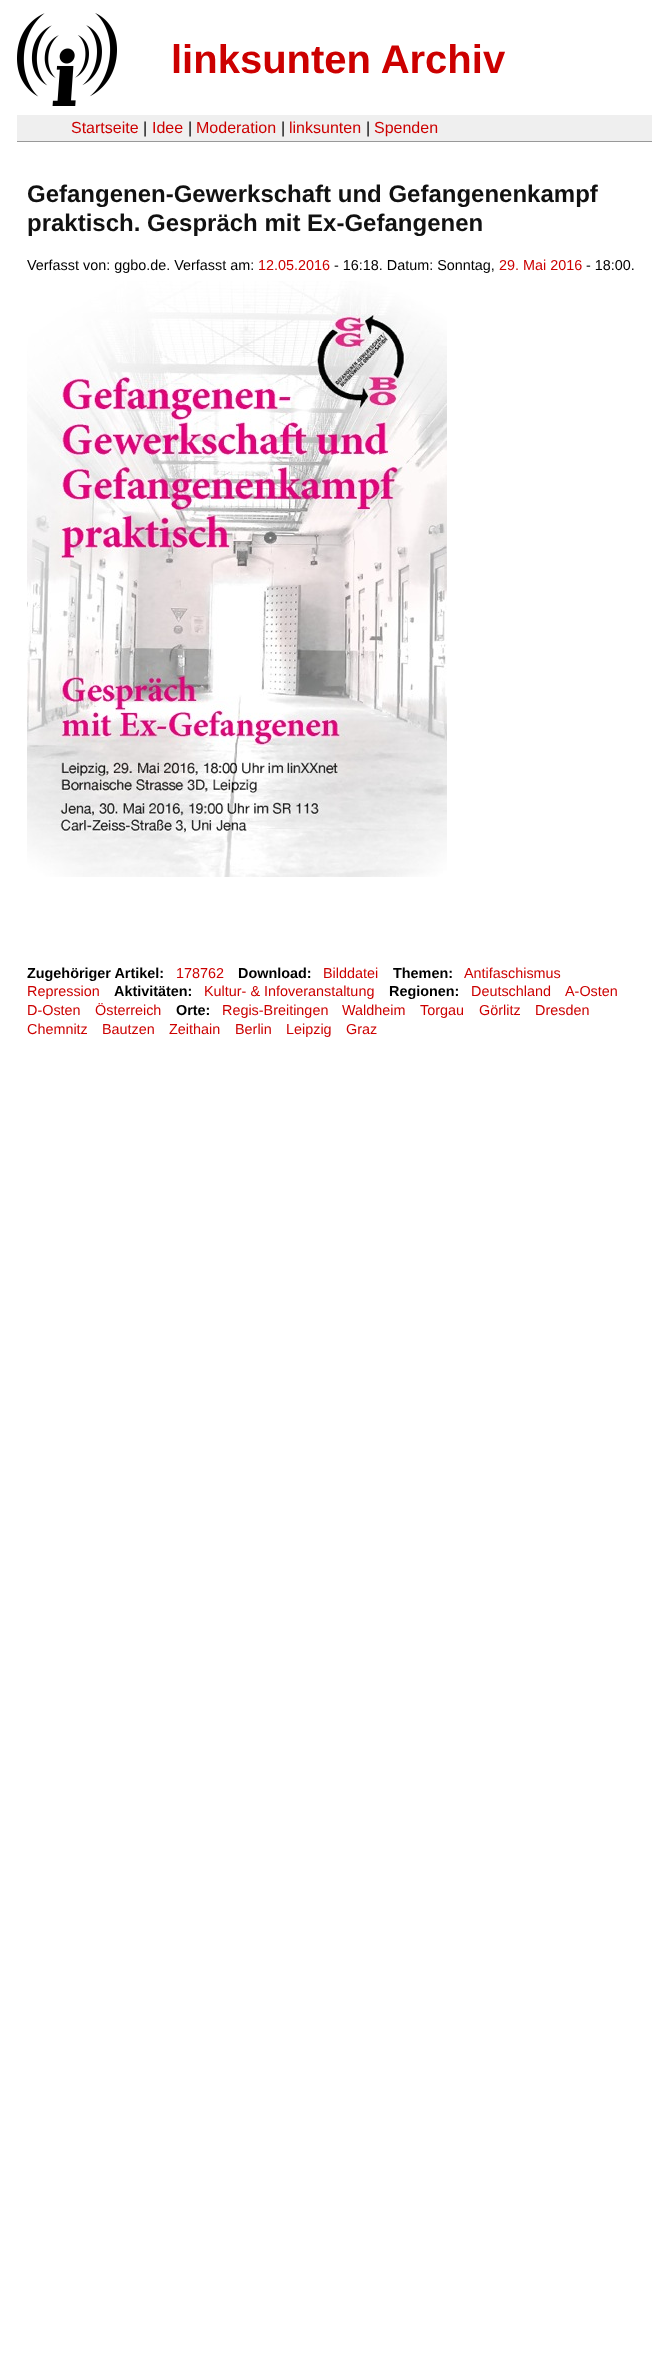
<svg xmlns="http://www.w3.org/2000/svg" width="669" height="2364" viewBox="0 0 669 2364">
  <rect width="100%" height="100%" fill="#ffffff"/>
  <image x="17" y="13" width="100" height="93" href="img1.png"/>
  <text x="171" y="73" font-family="Liberation Sans" font-size="40" font-weight="bold" fill="#cc0000">linksunten Archiv</text>
  <rect x="17" y="115" width="635" height="26" fill="#efefef"/>
  <rect x="17" y="141" width="635" height="1" fill="#999999"/>
  <text x="71" y="133" font-family="Liberation Sans" font-size="16" fill="#cc0000">Startseite</text>
  <text x="143" y="133" font-family="Liberation Sans" font-size="16" fill="#000000">|</text>
  <text x="152" y="133" font-family="Liberation Sans" font-size="16" fill="#cc0000">Idee</text>
  <text x="188" y="133" font-family="Liberation Sans" font-size="16" fill="#000000">|</text>
  <text x="196" y="133" font-family="Liberation Sans" font-size="16" fill="#cc0000">Moderation</text>
  <text x="281" y="133" font-family="Liberation Sans" font-size="16" fill="#000000">|</text>
  <text x="289" y="133" font-family="Liberation Sans" font-size="16" fill="#cc0000">linksunten</text>
  <text x="366" y="133" font-family="Liberation Sans" font-size="16" fill="#000000">|</text>
  <text x="374" y="133" font-family="Liberation Sans" font-size="16" fill="#cc0000">Spenden</text>
  <text x="27" y="202" font-family="Liberation Sans" font-size="24" font-weight="bold" fill="#111111">Gefangenen-Gewerkschaft und Gefangenenkampf</text>
  <text x="27" y="231" font-family="Liberation Sans" font-size="24" font-weight="bold" fill="#111111">praktisch. Gespräch mit Ex-Gefangenen</text>
  <text x="27" y="270" font-family="Liberation Sans" font-size="14.4" fill="#000000">Verfasst von: ggbo.de. Verfasst am:</text>
  <text x="258" y="270" font-family="Liberation Sans" font-size="14.4" fill="#cc0000">12.05.2016</text>
  <text x="334" y="270" font-family="Liberation Sans" font-size="14.4" fill="#000000">- 16:18. Datum: Sonntag,</text>
  <text x="499" y="270" font-family="Liberation Sans" font-size="14.4" fill="#cc0000">29. Mai 2016</text>
  <text x="586" y="270" font-family="Liberation Sans" font-size="14.4" fill="#000000">- 18:00.</text>
  <image x="27" y="281" width="420" height="596" href="img2.png"/>
  <text x="27" y="978" font-family="Liberation Sans" font-size="14.4" font-weight="bold" fill="#000000">Zugehöriger Artikel:</text>
  <text x="176" y="978" font-family="Liberation Sans" font-size="14.4" fill="#cc0000">178762</text>
  <text x="238" y="978" font-family="Liberation Sans" font-size="14.4" font-weight="bold" fill="#000000">Download:</text>
  <text x="323" y="978" font-family="Liberation Sans" font-size="14.4" fill="#cc0000">Bilddatei</text>
  <text x="393" y="978" font-family="Liberation Sans" font-size="14.4" font-weight="bold" fill="#000000">Themen:</text>
  <text x="464" y="978" font-family="Liberation Sans" font-size="14.4" fill="#cc0000">Antifaschismus</text>
  <text x="27" y="996" font-family="Liberation Sans" font-size="14.4" fill="#cc0000">Repression</text>
  <text x="389" y="996" font-family="Liberation Sans" font-size="14.4" font-weight="bold" fill="#000000">Regionen:</text>
  <text x="471" y="996" font-family="Liberation Sans" font-size="14.4" fill="#cc0000">Deutschland</text>
  <text x="565" y="996" font-family="Liberation Sans" font-size="14.4" fill="#cc0000">A-Osten</text>
  <text x="27" y="1015" font-family="Liberation Sans" font-size="14.4" fill="#cc0000">D-Osten</text>
  <text x="95" y="1015" font-family="Liberation Sans" font-size="14.4" fill="#cc0000">Österreich</text>
  <text x="114" y="996" font-family="Liberation Sans" font-size="14.4" font-weight="bold" fill="#000000">Aktivitäten:</text>
  <text x="204" y="996" font-family="Liberation Sans" font-size="14.4" fill="#cc0000">Kultur- &amp; Infoveranstaltung</text>
  <text x="176" y="1015" font-family="Liberation Sans" font-size="14.4" font-weight="bold" fill="#000000">Orte:</text>
  <text x="222" y="1015" font-family="Liberation Sans" font-size="14.4" fill="#cc0000">Regis-Breitingen</text>
  <text x="342" y="1015" font-family="Liberation Sans" font-size="14.4" fill="#cc0000">Waldheim</text>
  <text x="420" y="1015" font-family="Liberation Sans" font-size="14.4" fill="#cc0000">Torgau</text>
  <text x="479" y="1015" font-family="Liberation Sans" font-size="14.4" fill="#cc0000">Görlitz</text>
  <text x="535" y="1015" font-family="Liberation Sans" font-size="14.4" fill="#cc0000">Dresden</text>
  <text x="27" y="1034" font-family="Liberation Sans" font-size="14.4" fill="#cc0000">Chemnitz</text>
  <text x="102" y="1034" font-family="Liberation Sans" font-size="14.4" fill="#cc0000">Bautzen</text>
  <text x="169" y="1034" font-family="Liberation Sans" font-size="14.4" fill="#cc0000">Zeithain</text>
  <text x="235" y="1034" font-family="Liberation Sans" font-size="14.4" fill="#cc0000">Berlin</text>
  <text x="286" y="1034" font-family="Liberation Sans" font-size="14.4" fill="#cc0000">Leipzig</text>
  <text x="346" y="1034" font-family="Liberation Sans" font-size="14.4" fill="#cc0000">Graz</text>
</svg>
